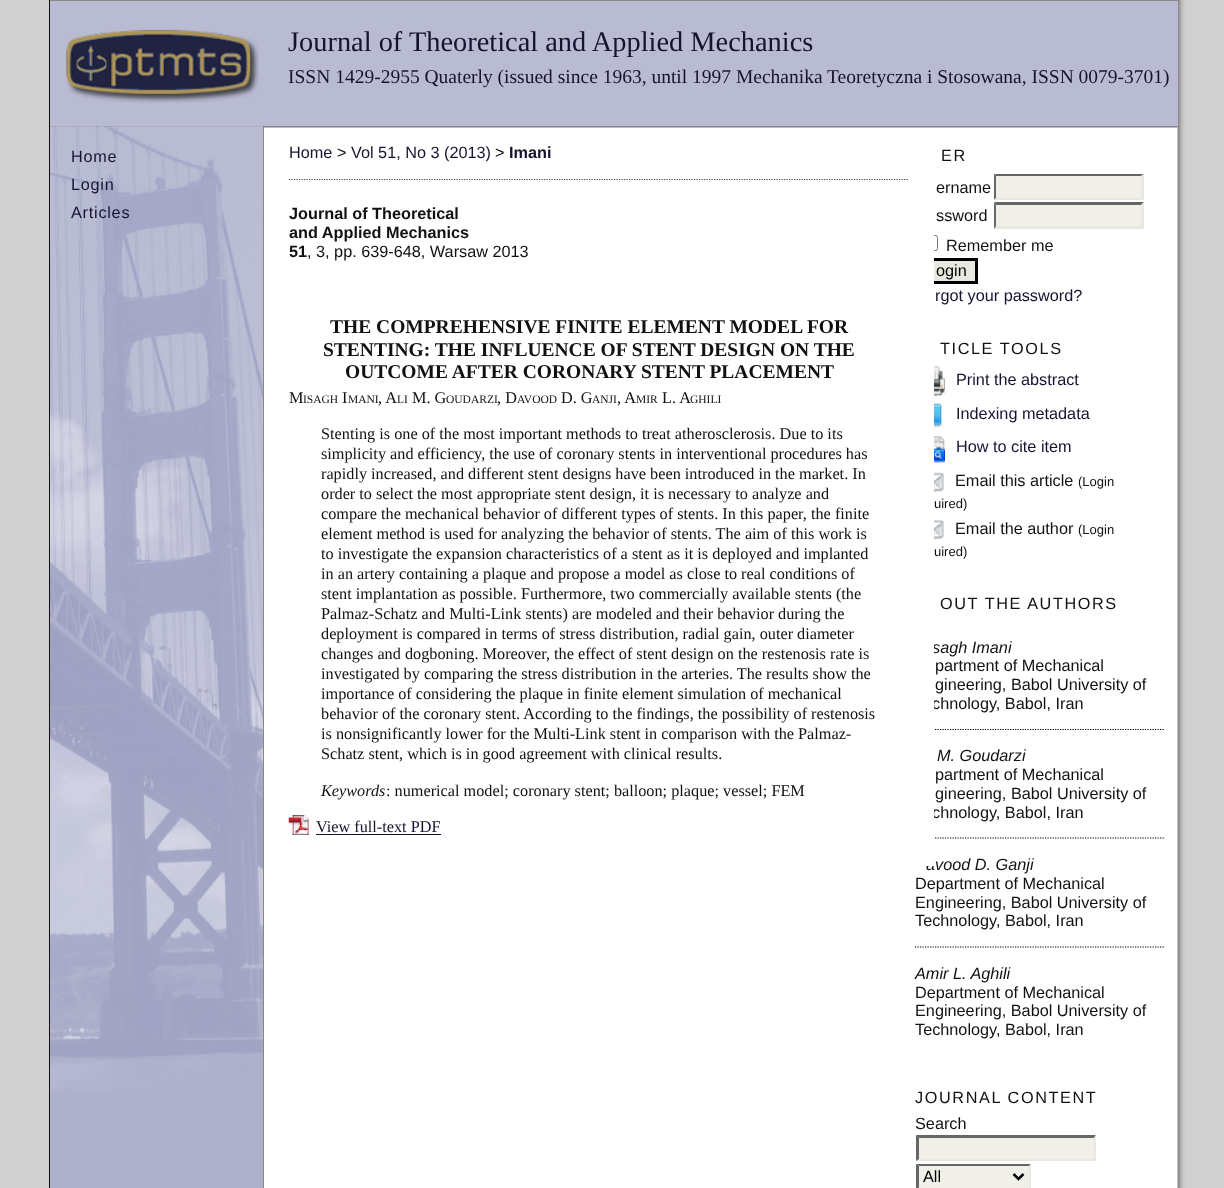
<svg xmlns="http://www.w3.org/2000/svg" width="1224" height="1188" viewBox="0 0 1224 1188">
  <rect width="100%" height="100%" fill="#d0d0d0"/>
  <rect x="264" y="128" width="914" height="1060" fill="#ffffff"/>
  <image x="1177" y="0" width="13" height="1188" href="img1.png"/>
  <rect x="49" y="0" width="1" height="1188" fill="#111111"/>
  <rect x="50" y="1" width="1128" height="127" fill="#b9bbd3"/>
  <rect x="50" y="0" width="1128" height="1" fill="#888888"/>
  <rect x="50" y="126" width="1128" height="1" fill="#888888"/>
  <image x="66" y="29" width="193" height="74" href="img2.png"/>
  <text x="288" y="51" font-family="Liberation Serif" font-size="28.4" fill="#151430">Journal of Theoretical and Applied Mechanics</text>
  <text x="288" y="83" font-family="Liberation Serif" font-size="19.5" fill="#151430">ISSN 1429-2955 Quaterly (issued since 1963, until 1997 Mechanika Teoretyczna i Stosowana, ISSN 0079-3701)</text>
  <rect x="921.5" y="235.5" width="16" height="15" rx="2" fill="none" stroke="#767676"/>
  <rect x="934" y="261" width="41" height="20" fill="#e8e8e1"/>
  <rect x="917.5" y="259.5" width="59" height="23" fill="none" stroke="#000000" stroke-width="3"/>
  <text x="932" y="653" font-family="Liberation Sans" font-size="16.25" font-style="italic" fill="#111111">sagh Imani</text>
  <text x="932" y="709" font-family="Liberation Sans" font-size="16.25" fill="#111111">chnology, Babol, Iran</text>
  <path d="M915 729.5H1165" fill="none" stroke="#000000" stroke-width="1.2" stroke-dasharray="1.25 1.25"/>
  <text x="932" y="818" font-family="Liberation Sans" font-size="16.25" fill="#111111">chnology, Babol, Iran</text>
  <path d="M915 838H1165" fill="none" stroke="#000000" stroke-width="1.2" stroke-dasharray="1.25 1.25"/>
  <text x="926" y="870" font-family="Liberation Sans" font-size="16.25" font-style="italic" fill="#111111">avood D. Ganji</text>
  <rect x="915" y="235" width="19" height="631" fill="#ffffff"/>
  <text x="289" y="158" font-family="Liberation Sans" font-size="16.25" fill="#151430">Home</text>
  <text x="337" y="158" font-family="Liberation Sans" font-size="16.25" fill="#111111">&gt;</text>
  <text x="351" y="158" font-family="Liberation Sans" font-size="16.25" fill="#151430">Vol 51, No 3 (2013)</text>
  <text x="495" y="158" font-family="Liberation Sans" font-size="16.25" fill="#111111">&gt;</text>
  <text x="509" y="158" font-family="Liberation Sans" font-size="16.25" font-weight="bold" fill="#151430">Imani</text>
  <path d="M289 179.5H909" fill="none" stroke="#404040" stroke-width="1.2" stroke-dasharray="1.25 1.25"/>
  <text x="289" y="219" font-family="Liberation Sans" font-size="16.25" font-weight="bold" fill="#111111">Journal of Theoretical</text>
  <text x="289" y="238" font-family="Liberation Sans" font-size="16.25" font-weight="bold" fill="#111111">and Applied Mechanics</text>
  <text x="289" y="257" font-family="Liberation Sans" font-size="16.25" font-weight="bold" fill="#111111">51</text>
  <text x="307" y="257" font-family="Liberation Sans" font-size="16.25" fill="#111111">, 3, pp. 639-648, Warsaw 2013</text>
  <text x="330" y="333" font-family="Liberation Serif" font-size="19.5" font-weight="bold" fill="#111111">THE COMPREHENSIVE FINITE ELEMENT MODEL FOR</text>
  <text x="323" y="356" font-family="Liberation Serif" font-size="19.5" font-weight="bold" fill="#111111">STENTING: THE INFLUENCE OF STENT DESIGN ON THE</text>
  <text x="345" y="378" font-family="Liberation Serif" font-size="19.5" font-weight="bold" fill="#111111">OUTCOME AFTER CORONARY STENT PLACEMENT</text>
  <text x="289" y="403" font-family="Liberation Serif" font-size="16.25" fill="#111111">M</text>
  <text x="303" y="403" font-family="Liberation Serif" font-size="11.5" fill="#111111">ISAGH</text>
  <text x="342" y="403" font-family="Liberation Serif" font-size="16.25" fill="#111111">I</text>
  <text x="348" y="403" font-family="Liberation Serif" font-size="11.5" fill="#111111">MANI</text>
  <text x="378" y="403" font-family="Liberation Serif" font-size="16.25" fill="#111111">, A</text>
  <text x="397" y="403" font-family="Liberation Serif" font-size="11.5" fill="#111111">LI</text>
  <text x="412" y="403" font-family="Liberation Serif" font-size="16.25" fill="#111111">M. G</text>
  <text x="446" y="403" font-family="Liberation Serif" font-size="11.5" fill="#111111">OUDARZI</text>
  <text x="497" y="403" font-family="Liberation Serif" font-size="16.25" fill="#111111">, D</text>
  <text x="517" y="403" font-family="Liberation Serif" font-size="11.5" fill="#111111">AVOOD</text>
  <text x="561" y="403" font-family="Liberation Serif" font-size="16.25" fill="#111111">D. G</text>
  <text x="592" y="403" font-family="Liberation Serif" font-size="11.5" fill="#111111">ANJI</text>
  <text x="617" y="403" font-family="Liberation Serif" font-size="16.25" fill="#111111">, A</text>
  <text x="636" y="403" font-family="Liberation Serif" font-size="11.5" fill="#111111">MIR</text>
  <text x="662" y="403" font-family="Liberation Serif" font-size="16.25" fill="#111111">L. A</text>
  <text x="690" y="403" font-family="Liberation Serif" font-size="11.5" fill="#111111">GHILI</text>
  <text x="321" y="439" font-family="Liberation Serif" font-size="16.25" fill="#111111">Stenting is one of the most important methods to treat atherosclerosis. Due to its</text>
  <text x="321" y="459" font-family="Liberation Serif" font-size="16.25" fill="#111111">simplicity and efficiency, the use of coronary stents in interventional procedures has</text>
  <text x="321" y="479" font-family="Liberation Serif" font-size="16.25" fill="#111111">rapidly increased, and different stent designs have been introduced in the market. In</text>
  <text x="321" y="499" font-family="Liberation Serif" font-size="16.25" fill="#111111">order to select the most appropriate stent design, it is necessary to analyze and</text>
  <text x="321" y="519" font-family="Liberation Serif" font-size="16.25" fill="#111111">compare the mechanical behavior of different types of stents. In this paper, the finite</text>
  <text x="321" y="539" font-family="Liberation Serif" font-size="16.25" fill="#111111">element method is used for analyzing the behavior of stents. The aim of this work is</text>
  <text x="321" y="559" font-family="Liberation Serif" font-size="16.25" fill="#111111">to investigate the expansion characteristics of a stent as it is deployed and implanted</text>
  <text x="321" y="579" font-family="Liberation Serif" font-size="16.25" fill="#111111">in an artery containing a plaque and propose a model as close to real conditions of</text>
  <text x="321" y="599" font-family="Liberation Serif" font-size="16.25" fill="#111111">stent implantation as possible. Furthermore, two commercially available stents (the</text>
  <text x="321" y="619" font-family="Liberation Serif" font-size="16.25" fill="#111111">Palmaz-Schatz and Multi-Link stents) are modeled and their behavior during the</text>
  <text x="321" y="639" font-family="Liberation Serif" font-size="16.25" fill="#111111">deployment is compared in terms of stress distribution, radial gain, outer diameter</text>
  <text x="321" y="659" font-family="Liberation Serif" font-size="16.25" fill="#111111">changes and dogboning. Moreover, the effect of stent design on the restenosis rate is</text>
  <text x="321" y="679" font-family="Liberation Serif" font-size="16.25" fill="#111111">investigated by comparing the stress distribution in the arteries. The results show the</text>
  <text x="321" y="699" font-family="Liberation Serif" font-size="16.25" fill="#111111">importance of considering the plaque in finite element simulation of mechanical</text>
  <text x="321" y="719" font-family="Liberation Serif" font-size="16.25" fill="#111111">behavior of the coronary stent. According to the findings, the possibility of restenosis</text>
  <text x="321" y="739" font-family="Liberation Serif" font-size="16.25" fill="#111111">is nonsignificantly lower for the Multi-Link stent in comparison with the Palmaz-</text>
  <text x="321" y="759" font-family="Liberation Serif" font-size="16.25" fill="#111111">Schatz stent, which is in good agreement with clinical results.</text>
  <text x="321" y="796" font-family="Liberation Serif" font-size="16.25" font-style="italic" fill="#111111">Keywords</text>
  <text x="386" y="796" font-family="Liberation Serif" font-size="16.25" fill="#111111">: numerical model; coronary stent; balloon; plaque; vessel; FEM</text>
  <image x="288" y="815" width="21" height="20" href="img3.png"/>
  <text x="316" y="832" font-family="Liberation Serif" font-size="16.25" fill="#151430">View full-text PDF</text>
  <rect x="316" y="834" width="125" height="1" fill="#151430"/>
  <image x="50" y="126" width="213" height="1062" href="img4.png"/>
  <rect x="263" y="126" width="1" height="1062" fill="#888888"/>
  <text x="71" y="162" font-family="Liberation Sans" font-size="16.25" letter-spacing="0.75" fill="#151430">Home</text>
  <text x="71" y="190" font-family="Liberation Sans" font-size="16.25" letter-spacing="0.75" fill="#151430">Login</text>
  <text x="71" y="218" font-family="Liberation Sans" font-size="16.25" letter-spacing="0.75" fill="#151430">Articles</text>
  <text x="941" y="161" font-family="Liberation Sans" font-size="16.25" letter-spacing="1.6" fill="#111111">ER</text>
  <text x="936" y="193" font-family="Liberation Sans" font-size="16.25" fill="#111111">ername</text>
  <rect x="994" y="174" width="150" height="26" fill="#f0f0e8"/>
  <path d="M994 174H1144L1141 176H996Z" fill="#666666"/>
  <path d="M1144 174V200L1141 197.5V176Z" fill="#e8e8e1"/>
  <path d="M1144 200H994L996 198H1141Z" fill="#e8e8e1"/>
  <path d="M994 200V174L996 176V197.5Z" fill="#666666"/>
  <text x="936" y="221" font-family="Liberation Sans" font-size="16.25" fill="#111111">ssword</text>
  <rect x="994" y="203" width="150" height="26" fill="#f0f0e8"/>
  <path d="M994 202H1144L1141 205H996Z" fill="#666666"/>
  <path d="M1144 202.5V229L1141 226V205Z" fill="#e8e8e1"/>
  <path d="M1144 229H994L996 226H1141Z" fill="#e8e8e1"/>
  <path d="M994 229V202.5L996 205V226Z" fill="#666666"/>
  <text x="946" y="251" font-family="Liberation Sans" font-size="16.25" fill="#111111">Remember me</text>
  <text x="936" y="276" font-family="Liberation Sans" font-size="16.25" fill="#000000">ogin</text>
  <text x="935" y="301" font-family="Liberation Sans" font-size="16.25" fill="#151430">rgot your password?</text>
  <text x="940" y="354" font-family="Liberation Sans" font-size="16.25" letter-spacing="1.6" fill="#111111">TICLE TOOLS</text>
  <image x="934" y="366" width="11" height="31" href="img5.png"/>
  <text x="956" y="385" font-family="Liberation Sans" font-size="16.25" fill="#151430">Print the abstract</text>
  <image x="934" y="403" width="10" height="26" href="img6.png"/>
  <text x="956" y="419" font-family="Liberation Sans" font-size="16.25" fill="#151430">Indexing metadata</text>
  <image x="934" y="436" width="11" height="27" href="img7.png"/>
  <text x="956" y="452" font-family="Liberation Sans" font-size="16.25" fill="#151430">How to cite item</text>
  <image x="934" y="472" width="10" height="21" href="img8.png"/>
  <text x="955" y="486" font-family="Liberation Sans" font-size="16.25" fill="#111111">Email this article</text>
  <text x="1078" y="486" font-family="Liberation Sans" font-size="13" fill="#111111">(Login</text>
  <text x="934" y="508" font-family="Liberation Sans" font-size="13" fill="#111111">uired)</text>
  <image x="934" y="520" width="10" height="20" href="img9.png"/>
  <text x="955" y="534" font-family="Liberation Sans" font-size="16.25" fill="#111111">Email the author</text>
  <text x="1078" y="534" font-family="Liberation Sans" font-size="13" fill="#111111">(Login</text>
  <text x="934" y="556" font-family="Liberation Sans" font-size="13" fill="#111111">uired)</text>
  <text x="940" y="609" font-family="Liberation Sans" font-size="16.25" letter-spacing="1.6" fill="#111111">OUT THE AUTHORS</text>
  <text x="935" y="671" font-family="Liberation Sans" font-size="16.25" fill="#111111">partment of Mechanical</text>
  <text x="935" y="690" font-family="Liberation Sans" font-size="16.25" fill="#111111">gineering, Babol University of</text>
  <text x="937" y="761" font-family="Liberation Sans" font-size="16.25" font-style="italic" fill="#111111">M. Goudarzi</text>
  <text x="935" y="780" font-family="Liberation Sans" font-size="16.25" fill="#111111">partment of Mechanical</text>
  <text x="935" y="799" font-family="Liberation Sans" font-size="16.25" fill="#111111">gineering, Babol University of</text>
  <text x="915" y="889" font-family="Liberation Sans" font-size="16.25" fill="#111111">Department of Mechanical</text>
  <text x="915" y="908" font-family="Liberation Sans" font-size="16.25" fill="#111111">Engineering, Babol University of</text>
  <text x="915" y="926" font-family="Liberation Sans" font-size="16.25" fill="#111111">Technology, Babol, Iran</text>
  <path d="M915 947H1165" fill="none" stroke="#000000" stroke-width="1.2" stroke-dasharray="1.25 1.25"/>
  <text x="915" y="979" font-family="Liberation Sans" font-size="16.25" font-style="italic" fill="#111111">Amir L. Aghili</text>
  <text x="915" y="998" font-family="Liberation Sans" font-size="16.25" fill="#111111">Department of Mechanical</text>
  <text x="915" y="1016" font-family="Liberation Sans" font-size="16.25" fill="#111111">Engineering, Babol University of</text>
  <text x="915" y="1035" font-family="Liberation Sans" font-size="16.25" fill="#111111">Technology, Babol, Iran</text>
  <text x="915" y="1103" font-family="Liberation Sans" font-size="16.25" letter-spacing="1.6" fill="#111111">JOURNAL CONTENT</text>
  <text x="915" y="1129" font-family="Liberation Sans" font-size="16.25" fill="#111111">Search</text>
  <rect x="916" y="1135" width="180" height="26" fill="#f0f0e8"/>
  <path d="M916 1135H1096L1094 1138H919Z" fill="#666666"/>
  <path d="M1096 1135V1161L1094 1159V1137.5Z" fill="#e8e8e1"/>
  <path d="M1096 1161H916L919 1159H1094Z" fill="#e8e8e1"/>
  <path d="M916 1161V1135L919 1137.5V1159Z" fill="#666666"/>
  <rect x="916" y="1164" width="115" height="24" fill="#f0f0e8"/>
  <path d="M916 1164H1031L1029 1166H919Z" fill="#666666"/>
  <path d="M1031 1164V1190L1029 1187.5V1166Z" fill="#e8e8e1"/>
  <path d="M916 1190V1164L919 1166V1187.5Z" fill="#666666"/>
  <path d="M1013.5 1174L1018.5 1179L1023.5 1174" fill="none" stroke="#000000" stroke-width="2.5"/>
  <text x="923" y="1182" font-family="Liberation Sans" font-size="16.25" fill="#000000">All</text>
</svg>
